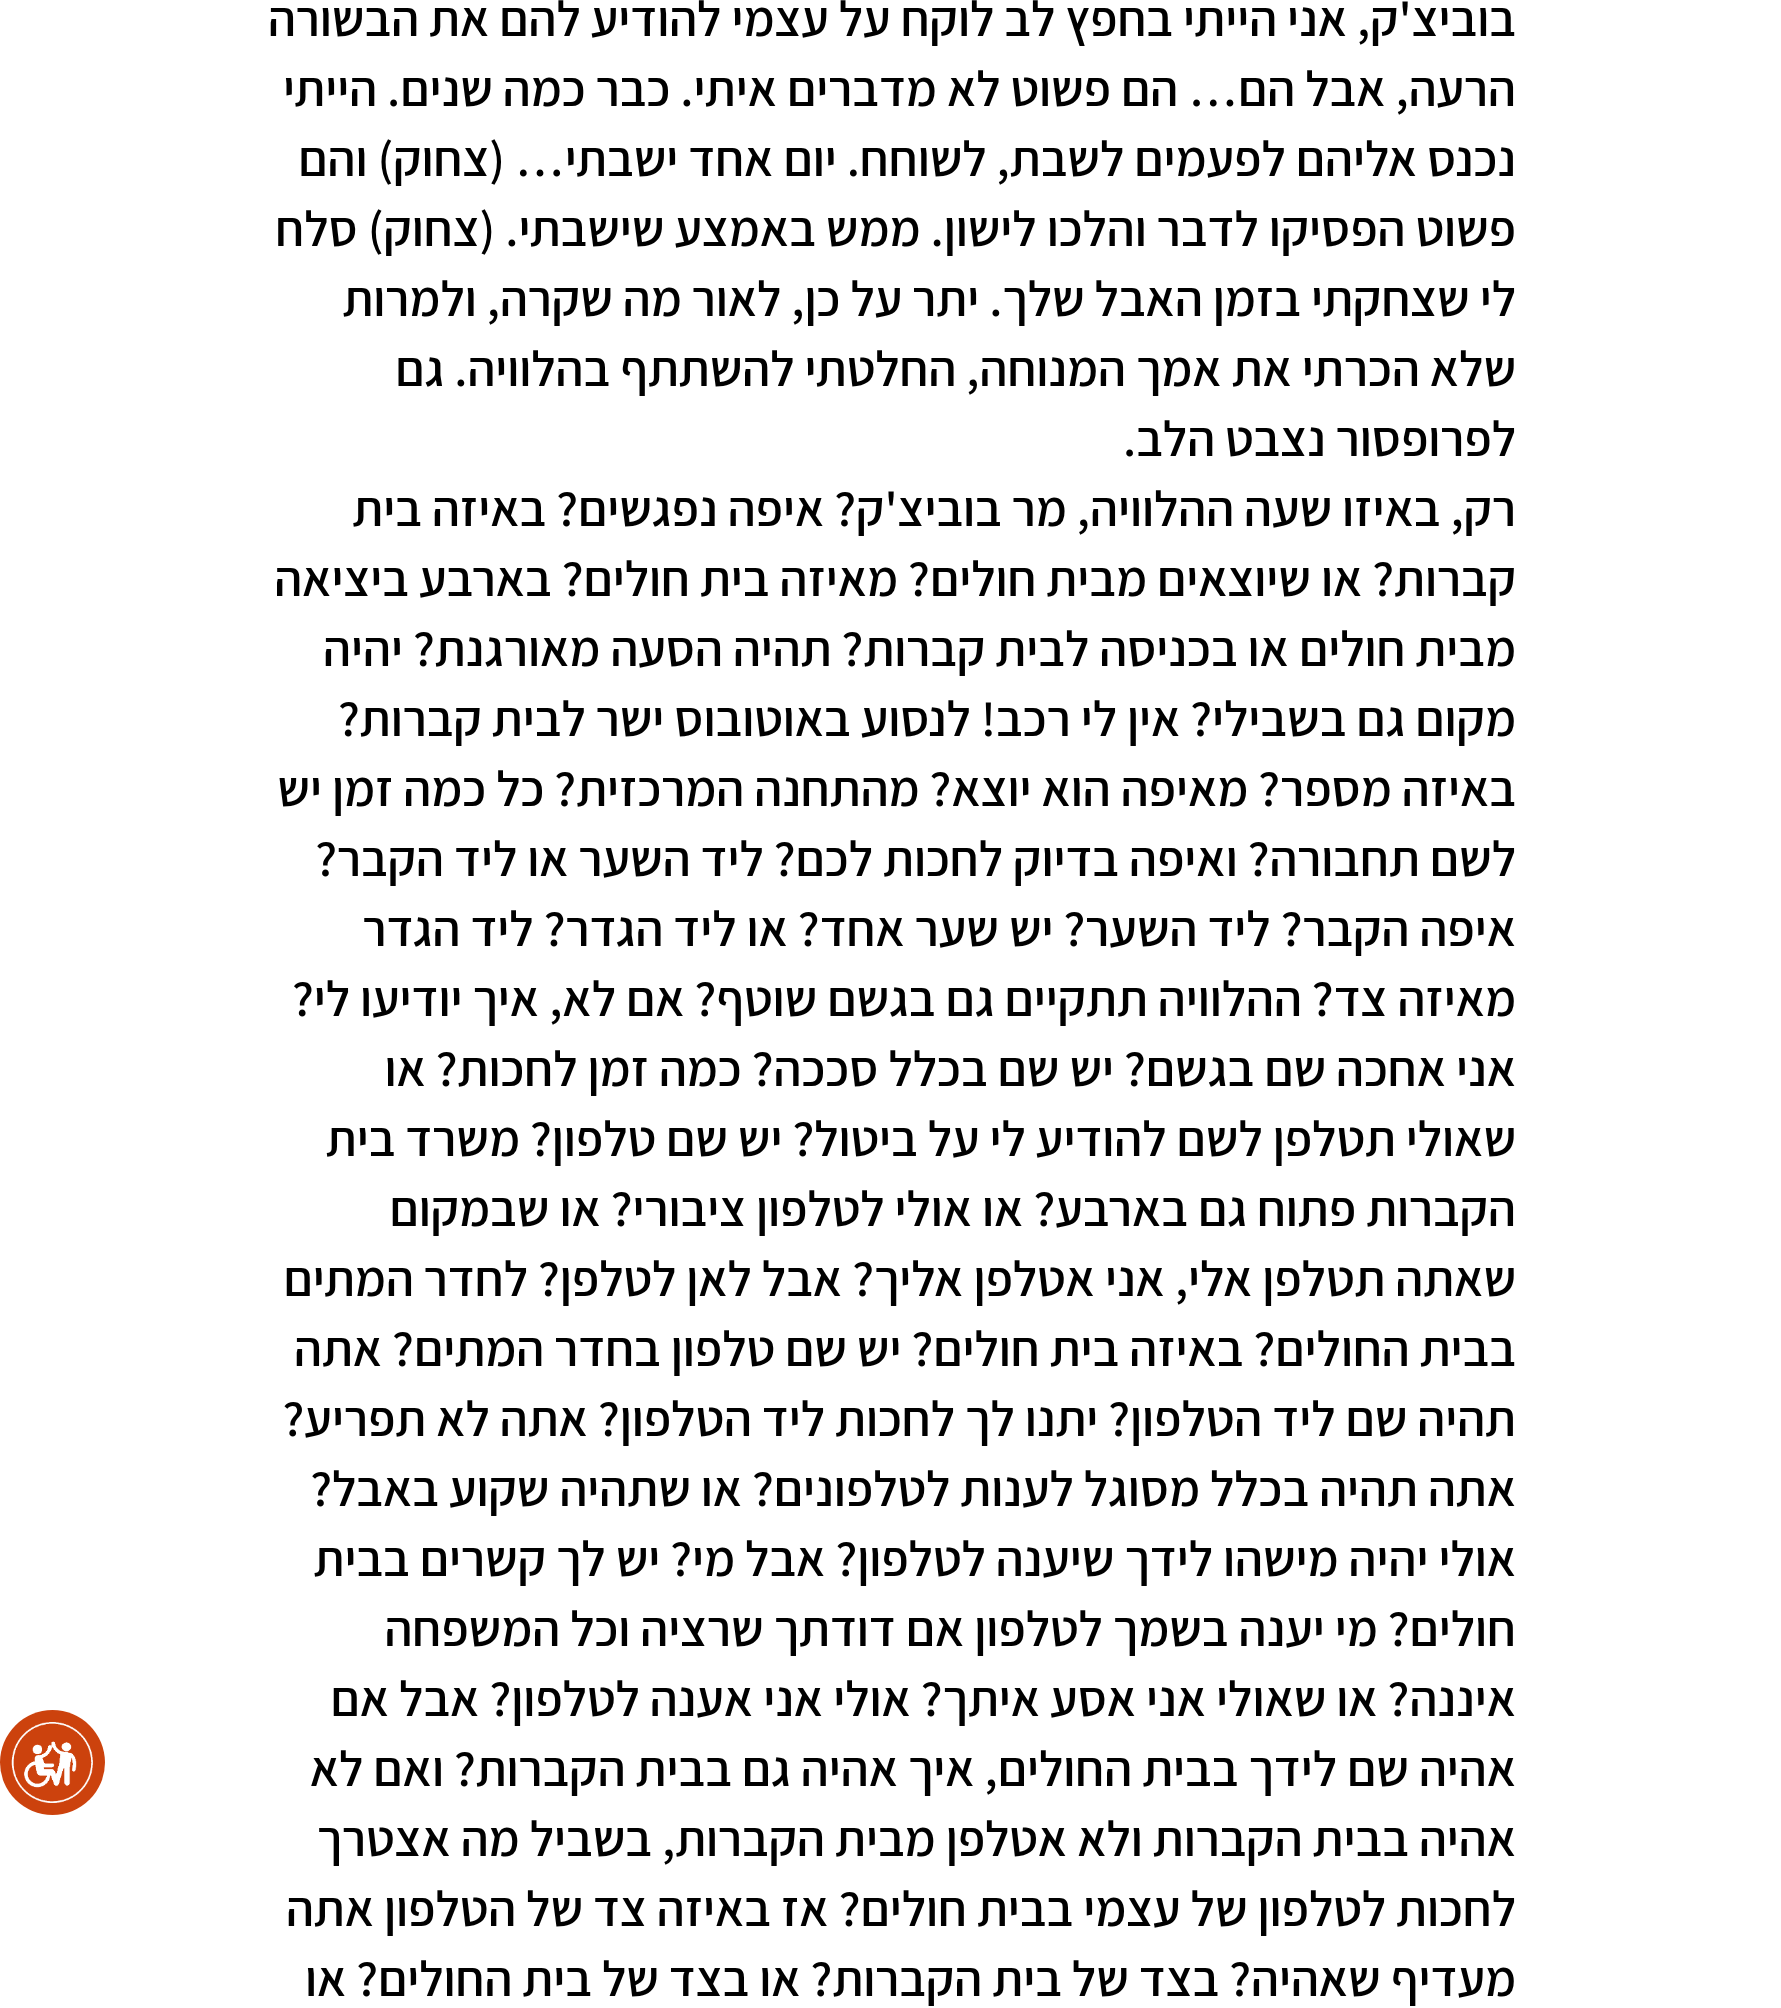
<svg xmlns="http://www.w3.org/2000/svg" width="1781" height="2008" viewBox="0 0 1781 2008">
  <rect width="100%" height="100%" fill="#ffffff"/>
  <text x="1516" y="36" font-family="Assistant" font-size="50" font-weight="600" direction="rtl" fill="#000000">בוביצ'ק, אני הייתי בחפץ לב לוקח על עצמי להודיע להם את הבשורה</text>
  <text x="1516" y="106" font-family="Assistant" font-size="50" font-weight="600" direction="rtl" fill="#000000">הרעה, אבל הם… הם פשוט לא מדברים איתי. כבר כמה שנים. הייתי</text>
  <text x="1516" y="176" font-family="Assistant" font-size="50" font-weight="600" direction="rtl" fill="#000000">נכנס אליהם לפעמים לשבת, לשוחח. יום אחד ישבתי… (צחוק) והם</text>
  <text x="1516" y="246" font-family="Assistant" font-size="50" font-weight="600" direction="rtl" fill="#000000">פשוט הפסיקו לדבר והלכו לישון. ממש באמצע שישבתי. (צחוק) סלח</text>
  <text x="1516" y="316" font-family="Assistant" font-size="50" font-weight="600" direction="rtl" fill="#000000">לי שצחקתי בזמן האבל שלך. יתר על כן, לאור מה שקרה, ולמרות</text>
  <text x="1516" y="386" font-family="Assistant" font-size="50" font-weight="600" direction="rtl" fill="#000000">שלא הכרתי את אמך המנוחה, החלטתי להשתתף בהלוויה. גם</text>
  <text x="1516" y="456" font-family="Assistant" font-size="50" font-weight="600" direction="rtl" fill="#000000">לפרופסור נצבט הלב.</text>
  <text x="1516" y="526" font-family="Assistant" font-size="50" font-weight="600" direction="rtl" fill="#000000">רק, באיזו שעה ההלוויה, מר בוביצ'ק? איפה נפגשים? באיזה בית</text>
  <text x="1516" y="596" font-family="Assistant" font-size="50" font-weight="600" direction="rtl" fill="#000000">קברות? או שיוצאים מבית חולים? מאיזה בית חולים? בארבע ביציאה</text>
  <text x="1516" y="666" font-family="Assistant" font-size="50" font-weight="600" direction="rtl" fill="#000000">מבית חולים או בכניסה לבית קברות? תהיה הסעה מאורגנת? יהיה</text>
  <text x="1516" y="736" font-family="Assistant" font-size="50" font-weight="600" direction="rtl" fill="#000000">מקום גם בשבילי? אין לי רכב! לנסוע באוטובוס ישר לבית קברות?</text>
  <text x="1516" y="806" font-family="Assistant" font-size="50" font-weight="600" direction="rtl" fill="#000000">באיזה מספר? מאיפה הוא יוצא? מהתחנה המרכזית? כל כמה זמן יש</text>
  <text x="1516" y="876" font-family="Assistant" font-size="50" font-weight="600" direction="rtl" fill="#000000">לשם תחבורה? ואיפה בדיוק לחכות לכם? ליד השער או ליד הקבר?</text>
  <text x="1516" y="946" font-family="Assistant" font-size="50" font-weight="600" direction="rtl" fill="#000000">איפה הקבר? ליד השער? יש שער אחד? או ליד הגדר? ליד הגדר</text>
  <text x="1516" y="1016" font-family="Assistant" font-size="50" font-weight="600" direction="rtl" fill="#000000">מאיזה צד? ההלוויה תתקיים גם בגשם שוטף? אם לא, איך יודיעו לי?</text>
  <text x="1516" y="1086" font-family="Assistant" font-size="50" font-weight="600" direction="rtl" fill="#000000">אני אחכה שם בגשם? יש שם בכלל סככה? כמה זמן לחכות? או</text>
  <text x="1516" y="1156" font-family="Assistant" font-size="50" font-weight="600" direction="rtl" fill="#000000">שאולי תטלפן לשם להודיע לי על ביטול? יש שם טלפון? משרד בית</text>
  <text x="1516" y="1226" font-family="Assistant" font-size="50" font-weight="600" direction="rtl" fill="#000000">הקברות פתוח גם בארבע? או אולי לטלפון ציבורי? או שבמקום</text>
  <text x="1516" y="1296" font-family="Assistant" font-size="50" font-weight="600" direction="rtl" fill="#000000">שאתה תטלפן אלי, אני אטלפן אליך? אבל לאן לטלפן? לחדר המתים</text>
  <text x="1516" y="1366" font-family="Assistant" font-size="50" font-weight="600" direction="rtl" fill="#000000">בבית החולים? באיזה בית חולים? יש שם טלפון בחדר המתים? אתה</text>
  <text x="1516" y="1436" font-family="Assistant" font-size="50" font-weight="600" direction="rtl" fill="#000000">תהיה שם ליד הטלפון? יתנו לך לחכות ליד הטלפון? אתה לא תפריע?</text>
  <text x="1516" y="1506" font-family="Assistant" font-size="50" font-weight="600" direction="rtl" fill="#000000">אתה תהיה בכלל מסוגל לענות לטלפונים? או שתהיה שקוע באבל?</text>
  <text x="1516" y="1576" font-family="Assistant" font-size="50" font-weight="600" direction="rtl" fill="#000000">אולי יהיה מישהו לידך שיענה לטלפון? אבל מי? יש לך קשרים בבית</text>
  <text x="1516" y="1646" font-family="Assistant" font-size="50" font-weight="600" direction="rtl" fill="#000000">חולים? מי יענה בשמך לטלפון אם דודתך שרציה וכל המשפחה</text>
  <text x="1516" y="1716" font-family="Assistant" font-size="50" font-weight="600" direction="rtl" fill="#000000">איננה? או שאולי אני אסע איתך? אולי אני אענה לטלפון? אבל אם</text>
  <text x="1516" y="1786" font-family="Assistant" font-size="50" font-weight="600" direction="rtl" fill="#000000">אהיה שם לידך בבית החולים, איך אהיה גם בבית הקברות? ואם לא</text>
  <text x="1516" y="1856" font-family="Assistant" font-size="50" font-weight="600" direction="rtl" fill="#000000">אהיה בבית הקברות ולא אטלפן מבית הקברות, בשביל מה אצטרך</text>
  <text x="1516" y="1926" font-family="Assistant" font-size="50" font-weight="600" direction="rtl" fill="#000000">לחכות לטלפון של עצמי בבית חולים? אז באיזה צד של הטלפון אתה</text>
  <text x="1516" y="1996" font-family="Assistant" font-size="50" font-weight="600" direction="rtl" fill="#000000">מעדיף שאהיה? בצד של בית הקברות? או בצד של בית החולים? או</text>
  <circle cx="52.5" cy="1762.5" r="52.5" fill="#cc420d"/>
  <image x="11" y="1722" width="82" height="81" href="img1.png"/>
</svg>
